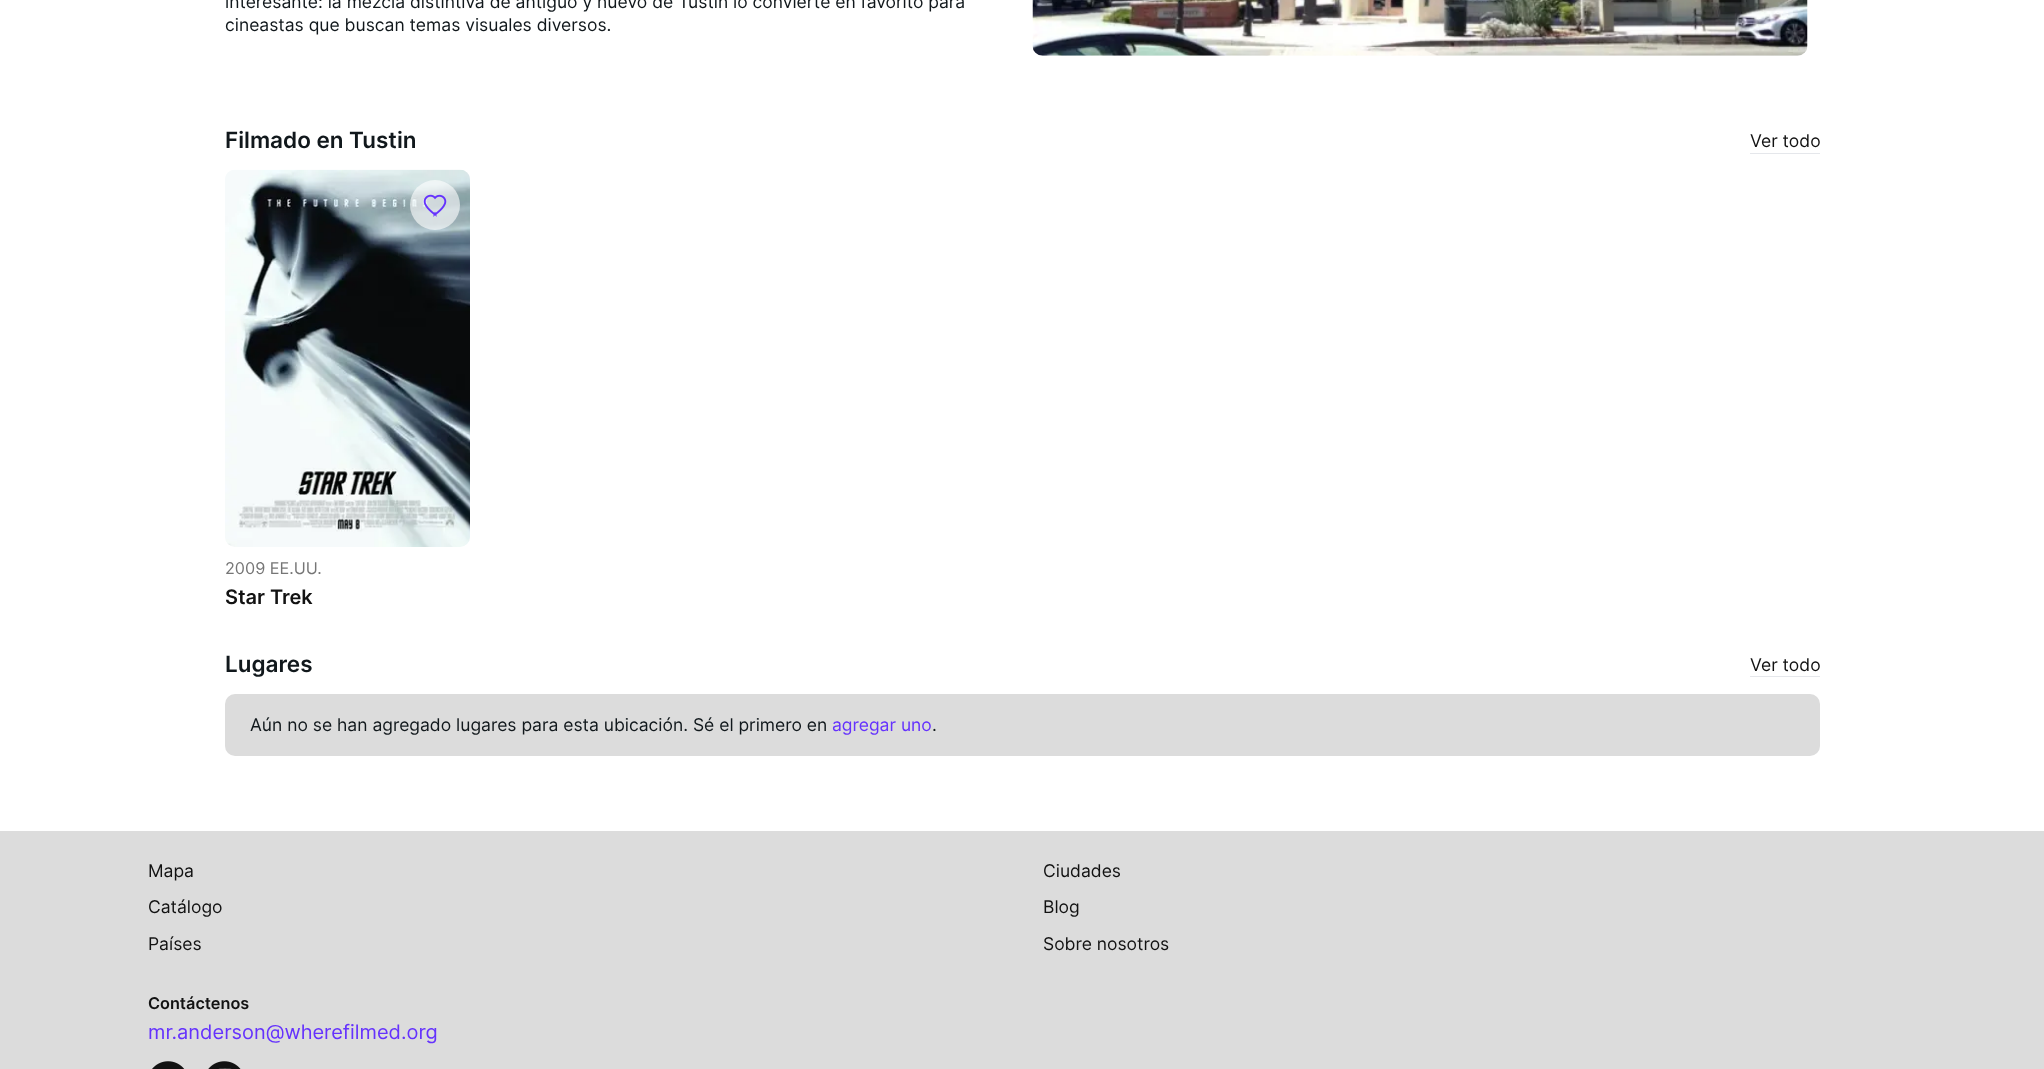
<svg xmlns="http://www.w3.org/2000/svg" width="2044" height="1069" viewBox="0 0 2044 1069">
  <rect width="100%" height="100%" fill="#ffffff"/>
  <text x="225" y="8" font-family="Inter" font-size="17.5" fill="#11181c">interesante: la mezcla distintiva de antiguo y nuevo de Tustin lo convierte en favorito para</text>
  <text x="225" y="31" font-family="Inter" font-size="17.5" fill="#11181c">cineastas que buscan temas visuales diversos.</text>
  <image x="1032" y="0" width="776" height="56" href="img1.png"/>
  <text x="225" y="148" font-family="Inter" font-size="22.5" font-weight="600" fill="#11181c">Filmado en Tustin</text>
  <rect x="1750" y="153" width="70" height="1" fill="#e5e7eb"/>
  <text x="1750" y="147" font-family="Inter" font-size="17.5" fill="#121212">Ver todo</text>
  <image x="225" y="169" width="245" height="378" href="img2.png"/>
  <circle cx="435" cy="205" r="25" fill="#ffffff" fill-opacity="0.6"/>
  <image x="423" y="194" width="24" height="23" href="img3.png"/>
  <text x="225" y="574" font-family="Inter" font-size="16.25" fill="#767676">2009 EE.UU.</text>
  <text x="225" y="604" font-family="Inter" font-size="20" font-weight="600" fill="#121212">Star Trek</text>
  <text x="225" y="672" font-family="Inter" font-size="22.5" font-weight="600" fill="#11181c">Lugares</text>
  <rect x="1750" y="676" width="70" height="1" fill="#e5e7eb"/>
  <text x="1750" y="671" font-family="Inter" font-size="17.5" fill="#121212">Ver todo</text>
  <rect x="225" y="694" width="1595" height="62" rx="10" fill="#dcdcdc"/>
  <text x="250" y="731" font-family="Inter" font-size="17.5" fill="#11181c">Aún no se han agregado lugares para esta ubicación. Sé el primero en</text>
  <text x="832" y="731" font-family="Inter" font-size="17.5" fill="#6532fd">agregar uno</text>
  <text x="932" y="731" font-family="Inter" font-size="17.5" fill="#11181c">.</text>
  <rect x="0" y="831" width="2044" height="238" fill="#dcdcdc"/>
  <text x="148" y="877" font-family="Inter" font-size="17.5" fill="#121212">Mapa</text>
  <text x="1043" y="877" font-family="Inter" font-size="17.5" fill="#121212">Ciudades</text>
  <text x="148" y="913" font-family="Inter" font-size="17.5" fill="#121212">Catálogo</text>
  <text x="1043" y="913" font-family="Inter" font-size="17.5" fill="#121212">Blog</text>
  <text x="148" y="950" font-family="Inter" font-size="17.5" fill="#121212">Países</text>
  <text x="1043" y="950" font-family="Inter" font-size="17.5" fill="#121212">Sobre nosotros</text>
  <text x="148" y="1009" font-family="Inter" font-size="16.25" font-weight="600" fill="#121212">Contáctenos</text>
  <text x="148" y="1039" font-family="Inter" font-size="20" fill="#6532fd">mr.anderson@wherefilmed.org</text>
  <image x="152" y="1061" width="33" height="8" href="img4.png"/>
  <image x="208" y="1061" width="33" height="8" href="img5.png"/>
</svg>
